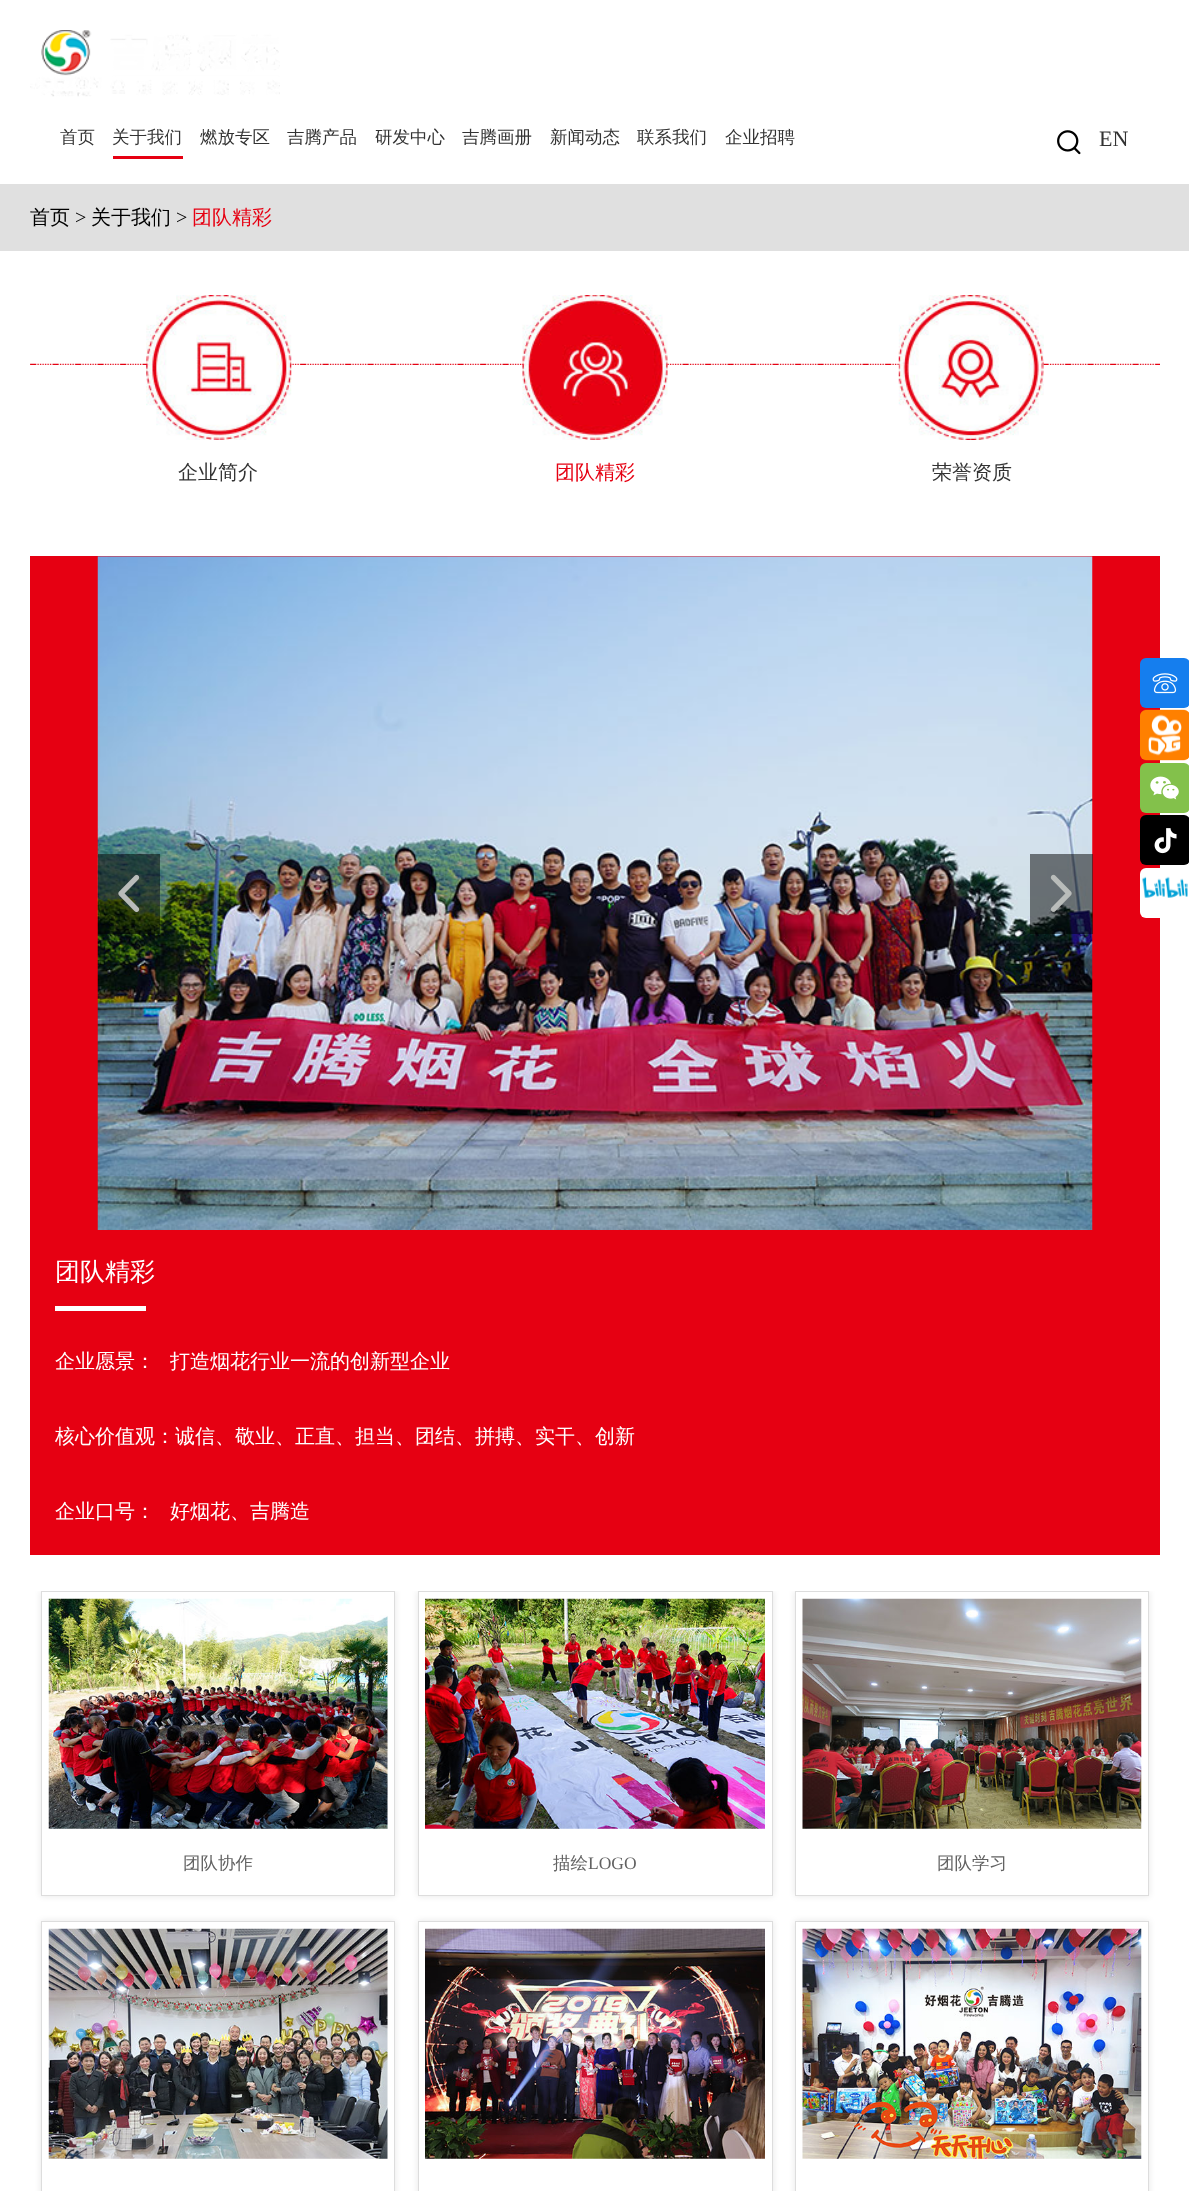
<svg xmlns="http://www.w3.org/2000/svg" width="1189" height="2191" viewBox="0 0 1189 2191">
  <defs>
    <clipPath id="clip1"><rect x="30" y="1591" width="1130" height="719"/></clipPath>
    <clipPath id="clip2"><path d="M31 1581H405V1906H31ZM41 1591H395V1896H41Z" clip-rule="evenodd"/></clipPath>
    <filter id="blur1" x="-50%" y="-200%" width="200%" height="500%"><feGaussianBlur stdDeviation="3"/></filter>
    <clipPath id="clip3"><path d="M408 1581H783V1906H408ZM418 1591H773V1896H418Z" clip-rule="evenodd"/></clipPath>
    <clipPath id="clip4"><path d="M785 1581H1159V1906H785ZM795 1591H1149V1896H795Z" clip-rule="evenodd"/></clipPath>
    <clipPath id="clip5"><path d="M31 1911H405V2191H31ZM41 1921H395V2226H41Z" clip-rule="evenodd"/></clipPath>
    <clipPath id="clip6"><path d="M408 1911H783V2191H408ZM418 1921H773V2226H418Z" clip-rule="evenodd"/></clipPath>
    <clipPath id="clip7"><path d="M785 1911H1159V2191H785ZM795 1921H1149V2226H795Z" clip-rule="evenodd"/></clipPath>
  </defs>
  <rect width="100%" height="100%" fill="#ffffff"/>
  <image x="30" y="30" width="250" height="67" href="img1.png"/>
  <text x="60" y="143" font-family="WenQuanYi Zen Hei" font-size="17.5" font-weight="500" fill="#333333">首页</text>
  <rect x="113" y="156" width="70" height="3" fill="#e60012"/>
  <text x="112" y="143" font-family="WenQuanYi Zen Hei" font-size="17.5" font-weight="500" fill="#333333">关于我们</text>
  <text x="200" y="143" font-family="WenQuanYi Zen Hei" font-size="17.5" font-weight="500" fill="#333333">燃放专区</text>
  <text x="287" y="143" font-family="WenQuanYi Zen Hei" font-size="17.5" font-weight="500" fill="#333333">吉腾产品</text>
  <text x="375" y="143" font-family="WenQuanYi Zen Hei" font-size="17.5" font-weight="500" fill="#333333">研发中心</text>
  <text x="462" y="143" font-family="WenQuanYi Zen Hei" font-size="17.5" font-weight="500" fill="#333333">吉腾画册</text>
  <text x="550" y="143" font-family="WenQuanYi Zen Hei" font-size="17.5" font-weight="500" fill="#333333">新闻动态</text>
  <text x="637" y="143" font-family="WenQuanYi Zen Hei" font-size="17.5" font-weight="500" fill="#333333">联系我们</text>
  <text x="725" y="143" font-family="WenQuanYi Zen Hei" font-size="17.5" font-weight="500" fill="#333333">企业招聘</text>
  <image x="1057" y="130" width="24" height="25" href="img2.png"/>
  <text x="1099" y="146" font-family="Liberation Serif" font-size="22" fill="#333333">EN</text>
  <rect x="0" y="184" width="1189" height="67" fill="#e0e0e0"/>
  <text x="30" y="224" font-family="WenQuanYi Zen Hei" font-size="20" font-weight="500" fill="#000000">首页</text>
  <text x="75" y="224" font-family="Liberation Serif" font-size="20" fill="#000000">&gt;</text>
  <text x="91" y="224" font-family="WenQuanYi Zen Hei" font-size="20" font-weight="500" fill="#000000">关于我们</text>
  <text x="176" y="224" font-family="Liberation Serif" font-size="20" fill="#000000">&gt;</text>
  <text x="192" y="224" font-family="WenQuanYi Zen Hei" font-size="20" font-weight="500" fill="#e60012">团队精彩</text>
  <image x="30" y="363" width="1130" height="2" href="img3.png"/>
  <image x="146" y="295" width="146" height="145" href="img4.png"/>
  <text x="178" y="479" font-family="WenQuanYi Zen Hei" font-size="20" font-weight="500" fill="#333333">企业简介</text>
  <image x="522" y="295" width="146" height="145" href="img5.png"/>
  <text x="555" y="479" font-family="WenQuanYi Zen Hei" font-size="20" font-weight="500" fill="#e60012">团队精彩</text>
  <image x="898" y="295" width="146" height="145" href="img6.png"/>
  <text x="932" y="479" font-family="WenQuanYi Zen Hei" font-size="20" font-weight="500" fill="#333333">荣誉资质</text>
  <rect x="30" y="556" width="1130" height="999" fill="#e60012"/>
  <image x="97" y="556" width="996" height="674" href="img7.png"/>
  <rect x="98" y="854" width="62" height="80" fill="#000000" fill-opacity="0.5"/>
  <image x="118" y="874" width="22" height="39" href="img8.png"/>
  <rect x="1030" y="854" width="63" height="80" fill="#000000" fill-opacity="0.5"/>
  <image x="1050" y="874" width="22" height="38" href="img9.png"/>
  <text x="55" y="1280" font-family="WenQuanYi Zen Hei" font-size="25" font-weight="500" fill="#ffffff">团队精彩</text>
  <rect x="55" y="1306" width="91" height="5" fill="#ffffff"/>
  <text x="55" y="1368" font-family="WenQuanYi Zen Hei" font-size="20" font-weight="500" fill="#ffffff">企业愿景：</text>
  <text x="170" y="1368" font-family="WenQuanYi Zen Hei" font-size="20" font-weight="500" fill="#ffffff">打造烟花行业一流的创新型企业</text>
  <text x="55" y="1443" font-family="WenQuanYi Zen Hei" font-size="20" font-weight="500" fill="#ffffff">核心价值观：诚信、敬业、正直、担当、团结、拼搏、实干、创新</text>
  <text x="55" y="1518" font-family="WenQuanYi Zen Hei" font-size="20" font-weight="500" fill="#ffffff">企业口号：</text>
  <text x="170" y="1518" font-family="WenQuanYi Zen Hei" font-size="20" font-weight="500" fill="#ffffff">好烟花、吉腾造</text>
  <g clip-path="url(#clip1)">
    <g clip-path="url(#clip2)">
      <rect x="41" y="1591" width="354" height="305" fill="#000000" fill-opacity="0.1" filter="url(#blur1)"/>
    </g>
  </g>
  <rect x="41.5" y="1591.5" width="353" height="304" fill="none" stroke="#dddddd"/>
  <image x="48" y="1598" width="340" height="231" href="img10.png"/>
  <text x="183" y="1869" font-family="WenQuanYi Zen Hei" font-size="17.5" font-weight="500" fill="#626262">团队协作</text>
  <g clip-path="url(#clip1)">
    <g clip-path="url(#clip3)">
      <rect x="418" y="1591" width="355" height="305" fill="#000000" fill-opacity="0.1" filter="url(#blur1)"/>
    </g>
  </g>
  <rect x="418.5" y="1591.5" width="354" height="304" fill="none" stroke="#dddddd"/>
  <image x="425" y="1598" width="340" height="231" href="img11.png"/>
  <text x="553" y="1869" font-family="WenQuanYi Zen Hei" font-size="17.5" font-weight="500" fill="#626262">描绘</text>
  <text x="588" y="1869" font-family="Liberation Serif" font-size="17.5" fill="#626262">LOGO</text>
  <g clip-path="url(#clip1)">
    <g clip-path="url(#clip4)">
      <rect x="795" y="1591" width="354" height="305" fill="#000000" fill-opacity="0.1" filter="url(#blur1)"/>
    </g>
  </g>
  <rect x="795.5" y="1591.5" width="353" height="304" fill="none" stroke="#dddddd"/>
  <image x="802" y="1598" width="340" height="231" href="img12.png"/>
  <text x="937" y="1869" font-family="WenQuanYi Zen Hei" font-size="17.5" font-weight="500" fill="#626262">团队学习</text>
  <g clip-path="url(#clip5)">
    <rect x="41" y="1921" width="354" height="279" fill="#000000" fill-opacity="0.1" filter="url(#blur1)"/>
  </g>
  <rect x="41.5" y="1921.5" width="353" height="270" fill="none" stroke="#dddddd"/>
  <image x="48" y="1928" width="340" height="231" href="img13.png"/>
  <g clip-path="url(#clip6)">
    <rect x="418" y="1921" width="355" height="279" fill="#000000" fill-opacity="0.1" filter="url(#blur1)"/>
  </g>
  <rect x="418.5" y="1921.5" width="354" height="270" fill="none" stroke="#dddddd"/>
  <image x="425" y="1928" width="340" height="231" href="img14.png"/>
  <g clip-path="url(#clip7)">
    <rect x="795" y="1921" width="354" height="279" fill="#000000" fill-opacity="0.1" filter="url(#blur1)"/>
  </g>
  <rect x="795.5" y="1921.5" width="353" height="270" fill="none" stroke="#dddddd"/>
  <image x="802" y="1928" width="340" height="231" href="img15.png"/>
  <rect x="1140" y="658" width="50" height="50" rx="6" fill="#157eee"/>
  <image x="1152" y="673" width="26" height="21" href="img16.png"/>
  <rect x="1140" y="710" width="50" height="50" rx="6" fill="#ff8000"/>
  <image x="1140" y="709" width="49" height="52" href="img17.png"/>
  <rect x="1140" y="763" width="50" height="50" rx="6" fill="#83c14b"/>
  <image x="1150" y="776" width="29" height="24" href="img18.png"/>
  <rect x="1140" y="815" width="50" height="50" rx="6" fill="#000000"/>
  <image x="1154" y="828" width="23" height="26" href="img19.png"/>
  <rect x="1140" y="868" width="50" height="50" rx="6" fill="#ffffff"/>
  <image x="1142" y="876" width="46" height="22" href="img20.png"/>
</svg>
